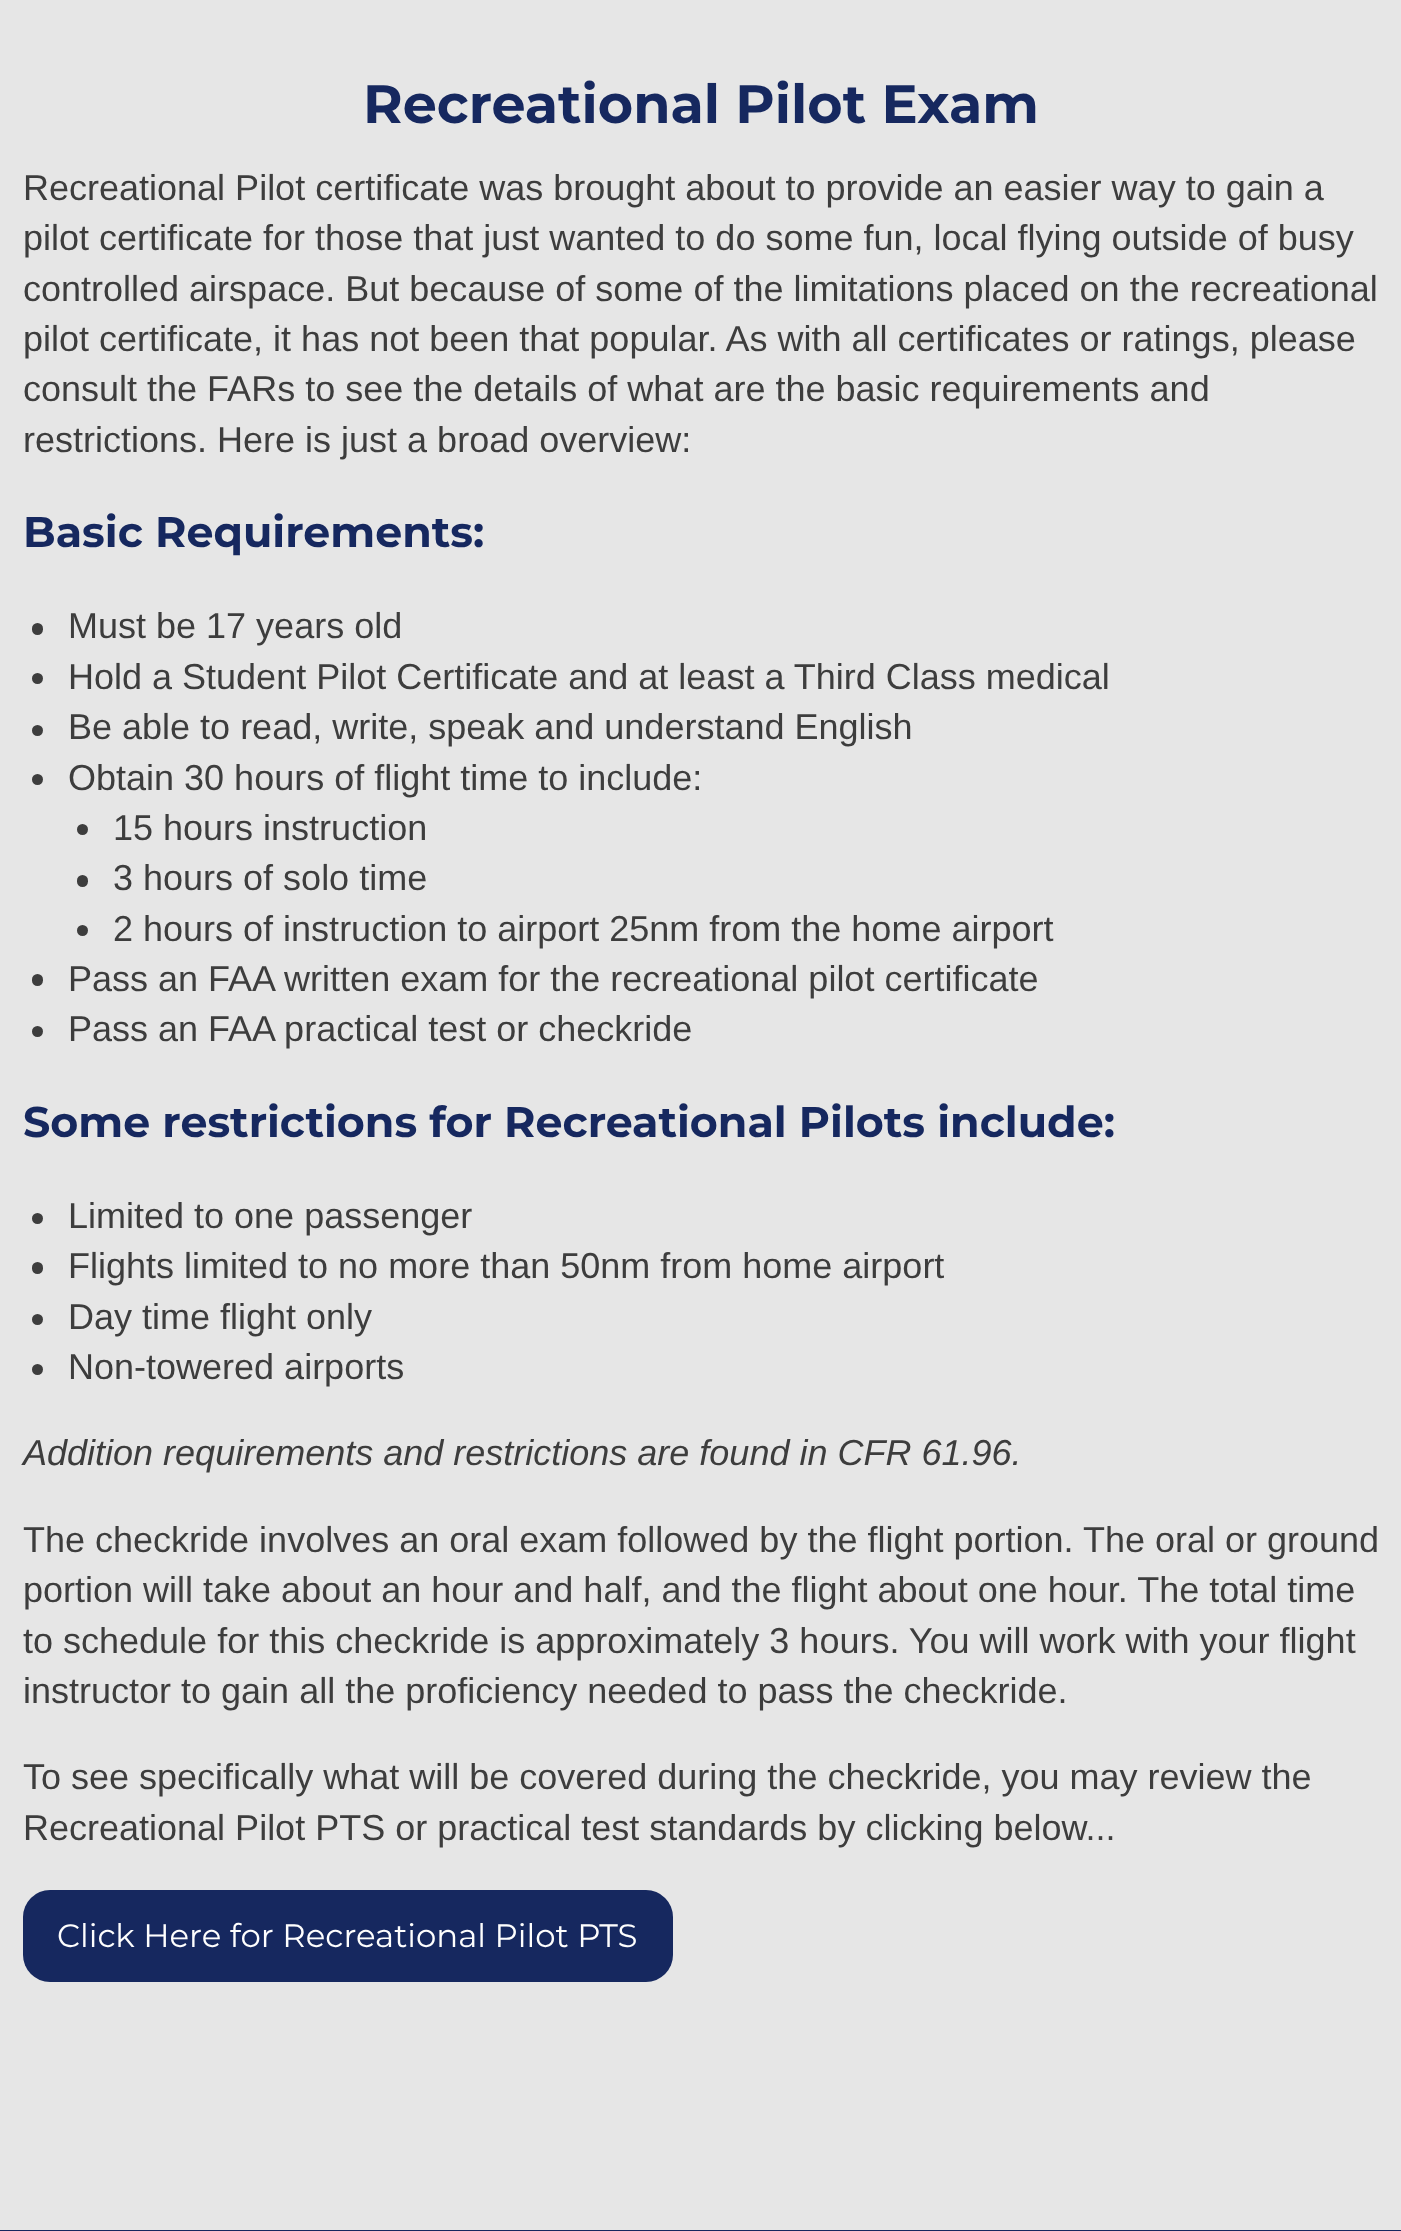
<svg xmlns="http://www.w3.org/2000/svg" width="1401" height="2231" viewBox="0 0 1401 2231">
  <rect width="100%" height="100%" fill="#e6e6e6"/>
  <text x="363" y="123" font-family="Montserrat" font-size="54" font-weight="bold" fill="#16285f">Recreational Pilot Exam</text>
  <text x="23" y="200" font-family="Liberation Sans" font-size="36" fill="#3d3d3d">Recreational Pilot certificate was brought about to provide an easier way to gain a</text>
  <text x="23" y="250" font-family="Liberation Sans" font-size="36" fill="#3d3d3d">pilot certificate for those that just wanted to do some fun, local flying outside of busy</text>
  <text x="23" y="301" font-family="Liberation Sans" font-size="36" fill="#3d3d3d">controlled airspace. But because of some of the limitations placed on the recreational</text>
  <text x="23" y="351" font-family="Liberation Sans" font-size="36" fill="#3d3d3d">pilot certificate, it has not been that popular. As with all certificates or ratings, please</text>
  <text x="23" y="401" font-family="Liberation Sans" font-size="36" fill="#3d3d3d">consult the FARs to see the details of what are the basic requirements and</text>
  <text x="23" y="452" font-family="Liberation Sans" font-size="36" fill="#3d3d3d">restrictions. Here is just a broad overview:</text>
  <text x="23" y="547" font-family="Montserrat" font-size="42.75" font-weight="bold" fill="#16285f">Basic Requirements:</text>
  <rect x="32" y="623" width="11" height="12" rx="5.5" fill="#3d3d3d"/>
  <text x="68" y="638" font-family="Liberation Sans" font-size="36" fill="#3d3d3d">Must be 17 years old</text>
  <circle cx="37.5" cy="678.5" r="5.5" fill="#3d3d3d"/>
  <text x="68" y="689" font-family="Liberation Sans" font-size="36" fill="#3d3d3d">Hold a Student Pilot Certificate and at least a Third Class medical</text>
  <circle cx="37.5" cy="730.5" r="5.5" fill="#3d3d3d"/>
  <text x="68" y="739" font-family="Liberation Sans" font-size="36" fill="#3d3d3d">Be able to read, write, speak and understand English</text>
  <circle cx="37.5" cy="779.5" r="5.5" fill="#3d3d3d"/>
  <text x="68" y="790" font-family="Liberation Sans" font-size="36" fill="#3d3d3d">Obtain 30 hours of flight time to include:</text>
  <circle cx="82.5" cy="829.5" r="5.5" fill="#3d3d3d"/>
  <text x="113" y="840" font-family="Liberation Sans" font-size="36" fill="#3d3d3d">15 hours instruction</text>
  <rect x="77" y="875" width="11" height="12" rx="5.5" fill="#3d3d3d"/>
  <text x="113" y="890" font-family="Liberation Sans" font-size="36" fill="#3d3d3d">3 hours of solo time</text>
  <circle cx="82.5" cy="930.5" r="5.5" fill="#3d3d3d"/>
  <text x="113" y="941" font-family="Liberation Sans" font-size="36" fill="#3d3d3d">2 hours of instruction to airport 25nm from the home airport</text>
  <rect x="32" y="974" width="11" height="12" rx="5.5" fill="#3d3d3d"/>
  <text x="68" y="991" font-family="Liberation Sans" font-size="36" fill="#3d3d3d">Pass an FAA written exam for the recreational pilot certificate</text>
  <circle cx="37.5" cy="1031.5" r="5.5" fill="#3d3d3d"/>
  <text x="68" y="1041" font-family="Liberation Sans" font-size="36" fill="#3d3d3d">Pass an FAA practical test or checkride</text>
  <text x="23" y="1137" font-family="Montserrat" font-size="42.75" font-weight="bold" fill="#16285f">Some restrictions for Recreational Pilots include:</text>
  <circle cx="37.5" cy="1218.5" r="5.5" fill="#3d3d3d"/>
  <text x="68" y="1228" font-family="Liberation Sans" font-size="36" fill="#3d3d3d">Limited to one passenger</text>
  <rect x="32" y="1262" width="11" height="12" rx="5.5" fill="#3d3d3d"/>
  <text x="68" y="1278" font-family="Liberation Sans" font-size="36" fill="#3d3d3d">Flights limited to no more than 50nm from home airport</text>
  <circle cx="37.5" cy="1319.5" r="5.5" fill="#3d3d3d"/>
  <text x="68" y="1329" font-family="Liberation Sans" font-size="36" fill="#3d3d3d">Day time flight only</text>
  <circle cx="37.5" cy="1369.5" r="5.5" fill="#3d3d3d"/>
  <text x="68" y="1379" font-family="Liberation Sans" font-size="36" fill="#3d3d3d">Non-towered airports</text>
  <text x="23" y="1465" font-family="Liberation Sans" font-size="36" font-style="italic" fill="#3d3d3d">Addition requirements and restrictions are found in CFR 61.96.</text>
  <text x="23" y="1552" font-family="Liberation Sans" font-size="36" fill="#3d3d3d">The checkride involves an oral exam followed by the flight portion. The oral or ground</text>
  <text x="23" y="1602" font-family="Liberation Sans" font-size="36" fill="#3d3d3d">portion will take about an hour and half, and the flight about one hour. The total time</text>
  <text x="23" y="1653" font-family="Liberation Sans" font-size="36" fill="#3d3d3d">to schedule for this checkride is approximately 3 hours. You will work with your flight</text>
  <text x="23" y="1703" font-family="Liberation Sans" font-size="36" fill="#3d3d3d">instructor to gain all the proficiency needed to pass the checkride.</text>
  <text x="23" y="1789" font-family="Liberation Sans" font-size="36" fill="#3d3d3d">To see specifically what will be covered during the checkride, you may review the</text>
  <text x="23" y="1840" font-family="Liberation Sans" font-size="36" fill="#3d3d3d">Recreational Pilot PTS or practical test standards by clicking below...</text>
  <rect x="23" y="1890" width="650" height="92" rx="27" fill="#16285f"/>
  <text x="57" y="1947" font-family="Montserrat" font-size="32.4" fill="#fefefe">Click Here for Recreational Pilot PTS</text>
  <rect x="0" y="2230" width="1401" height="1" fill="#16285f"/>
</svg>
